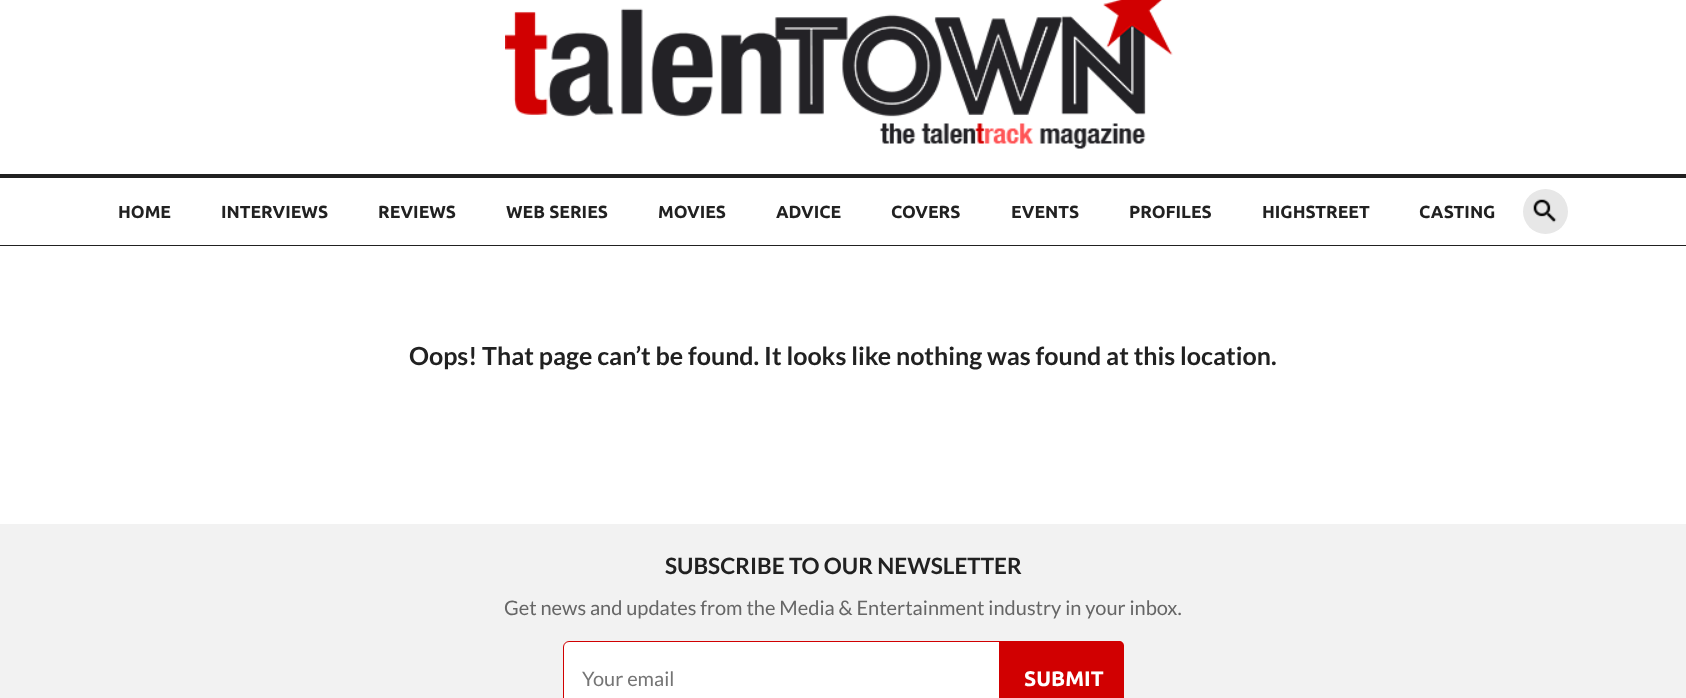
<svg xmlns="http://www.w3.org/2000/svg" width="1686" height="698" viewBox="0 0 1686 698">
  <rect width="100%" height="100%" fill="#ffffff"/>
  <image x="505" y="0" width="668" height="149" href="img1.png"/>
  <rect x="0" y="174" width="1686" height="4" fill="#212121"/>
  <rect x="0" y="245" width="1686" height="1" fill="#212121"/>
  <text x="118" y="218" font-family="Ubuntu" font-size="17.5" font-weight="bold" fill="#212121">HOME</text>
  <text x="221" y="218" font-family="Ubuntu" font-size="17.5" font-weight="bold" fill="#212121">INTERVIEWS</text>
  <text x="378" y="218" font-family="Ubuntu" font-size="17.5" font-weight="bold" fill="#212121">REVIEWS</text>
  <text x="506" y="218" font-family="Ubuntu" font-size="17.5" font-weight="bold" fill="#212121">WEB SERIES</text>
  <text x="658" y="218" font-family="Ubuntu" font-size="17.5" font-weight="bold" fill="#212121">MOVIES</text>
  <text x="776" y="218" font-family="Ubuntu" font-size="17.5" font-weight="bold" fill="#212121">ADVICE</text>
  <text x="891" y="218" font-family="Ubuntu" font-size="17.5" font-weight="bold" fill="#212121">COVERS</text>
  <text x="1011" y="218" font-family="Ubuntu" font-size="17.5" font-weight="bold" fill="#212121">EVENTS</text>
  <text x="1129" y="218" font-family="Ubuntu" font-size="17.5" font-weight="bold" fill="#212121">PROFILES</text>
  <text x="1262" y="218" font-family="Ubuntu" font-size="17.5" font-weight="bold" fill="#212121">HIGHSTREET</text>
  <text x="1419" y="218" font-family="Ubuntu" font-size="17.5" font-weight="bold" fill="#212121">CASTING</text>
  <circle cx="1545.5" cy="211.5" r="22.5" fill="#e7e7e7"/>
  <image x="1533" y="199" width="24" height="24" href="img2.png"/>
  <text x="409" y="365" font-family="Lato" font-size="25" font-weight="bold" fill="#212121">Oops! That page can’t be found. It looks like nothing was found at this location.</text>
  <rect x="0" y="524" width="1686" height="174" fill="#f2f2f2"/>
  <text x="665" y="574" font-family="Lato" font-size="22.5" font-weight="bold" fill="#212121">SUBSCRIBE TO OUR NEWSLETTER</text>
  <text x="504" y="615" font-family="Lato" font-size="20" fill="#666666">Get news and updates from the Media &amp; Entertainment industry in your inbox.</text>
  <path d="M569 641.5H999.5V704.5H569C566 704.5 563.5 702 563.5 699V647C563.5 644 566 641.5 569 641.5Z" fill="#ffffff" stroke="#d10001"/>
  <text x="582" y="686" font-family="Lato" font-size="20" fill="#757575">Your email</text>
  <path d="M999 641H1119C1122 641 1124 643 1124 646V698C1124 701 1122 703 1119 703H999Z" fill="#d10001"/>
  <text x="1024" y="686" font-family="Ubuntu" font-size="21" font-weight="bold" fill="#ffffff">SUBMIT</text>
</svg>
